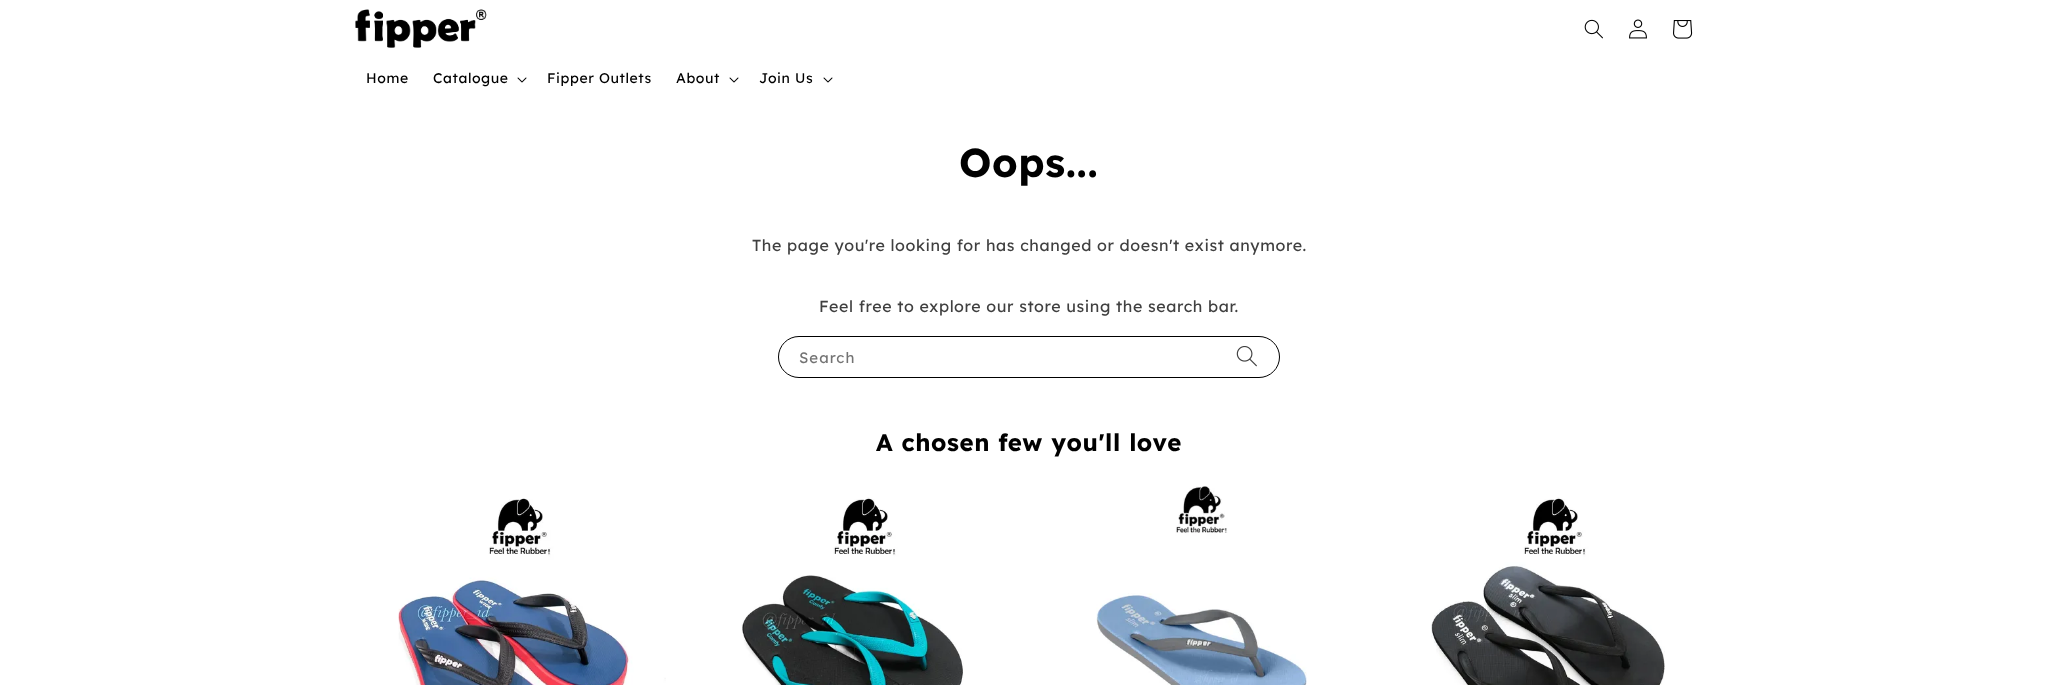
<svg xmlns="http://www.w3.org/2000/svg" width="2058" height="685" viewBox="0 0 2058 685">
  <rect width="100%" height="100%" fill="#ffffff"/>
  <image x="355" y="9" width="132" height="39" href="img1.png"/>
  <image x="1584" y="19" width="19" height="20" href="img2.png"/>
  <image x="1629" y="19" width="18" height="20" href="img3.png"/>
  <image x="1673" y="20" width="20" height="19" href="img4.png"/>
  <text x="366" y="83" font-family="Lexend" font-size="14" letter-spacing="0.6" fill="#000000">Home</text>
  <text x="433" y="83" font-family="Lexend" font-size="14" letter-spacing="0.6" fill="#000000">Catalogue</text>
  <image x="517" y="77" width="10" height="6" href="img5.png"/>
  <text x="547" y="83" font-family="Lexend" font-size="14" letter-spacing="0.6" fill="#000000">Fipper Outlets</text>
  <text x="676" y="83" font-family="Lexend" font-size="14" letter-spacing="0.6" fill="#000000">About</text>
  <image x="729" y="77" width="10" height="6" href="img5.png"/>
  <text x="759" y="83" font-family="Lexend" font-size="14" letter-spacing="0.6" fill="#000000">Join Us</text>
  <image x="823" y="77" width="10" height="6" href="img5.png"/>
  <text x="959" y="177" font-family="Lexend" font-size="40" font-weight="bold" letter-spacing="0.6" fill="#000000">Oops...</text>
  <text x="752" y="251" font-family="Lexend" font-size="16" letter-spacing="0.6" fill="#404040">The page you're looking for has changed or doesn't exist anymore.</text>
  <text x="819" y="312" font-family="Lexend" font-size="16" letter-spacing="0.6" fill="#404040">Feel free to explore our store using the search bar.</text>
  <rect x="778.5" y="336.5" width="501" height="41" rx="20.5" fill="none" stroke="#000000"/>
  <text x="799" y="363" font-family="Lexend" font-size="15" letter-spacing="1" fill="#737373">Search</text>
  <image x="1236" y="346" width="21" height="21" href="img6.png"/>
  <text x="876" y="451" font-family="Lexend" font-size="24" font-weight="bold" letter-spacing="0.6" fill="#000000">A chosen few you'll love</text>
  <image x="398" y="498" width="268" height="187" href="img7.png"/>
  <image x="741" y="497" width="223" height="188" href="img8.png"/>
  <image x="1096" y="486" width="211" height="199" href="img9.png"/>
  <image x="1431" y="497" width="234" height="188" href="img10.png"/>
</svg>
